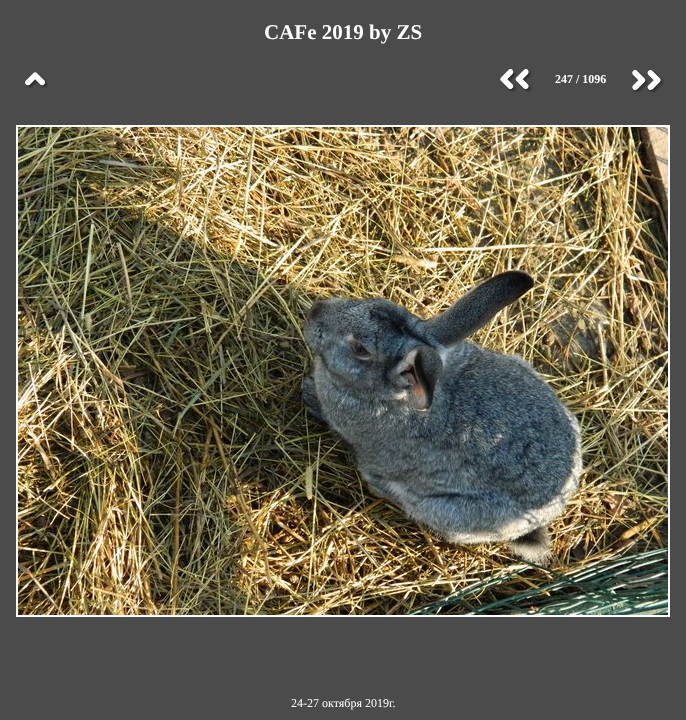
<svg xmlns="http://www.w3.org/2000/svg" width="686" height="720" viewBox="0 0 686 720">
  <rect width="100%" height="100%" fill="#4b4b4b"/>
  <text x="264" y="39" font-family="Liberation Serif" font-size="21" font-weight="bold" fill="#ffffff">CAFe 2019 by ZS</text>
  <image x="25" y="72" width="23" height="16" href="img1.png"/>
  <image x="500" y="69" width="32" height="23" href="img2.png"/>
  <text x="555" y="83" font-family="Liberation Serif" font-size="12" font-weight="bold" fill="#ffffff">247 / 1096</text>
  <image x="632" y="70" width="32" height="23" href="img3.png"/>
  <rect x="17" y="126" width="652" height="490" fill="none" stroke="#ffffff" stroke-width="2"/>
  <image x="18" y="127" width="650" height="488" href="img4.png"/>
  <text x="291" y="707" font-family="Liberation Serif" font-size="12" fill="#ffffff">24-27 октября 2019г.</text>
</svg>
